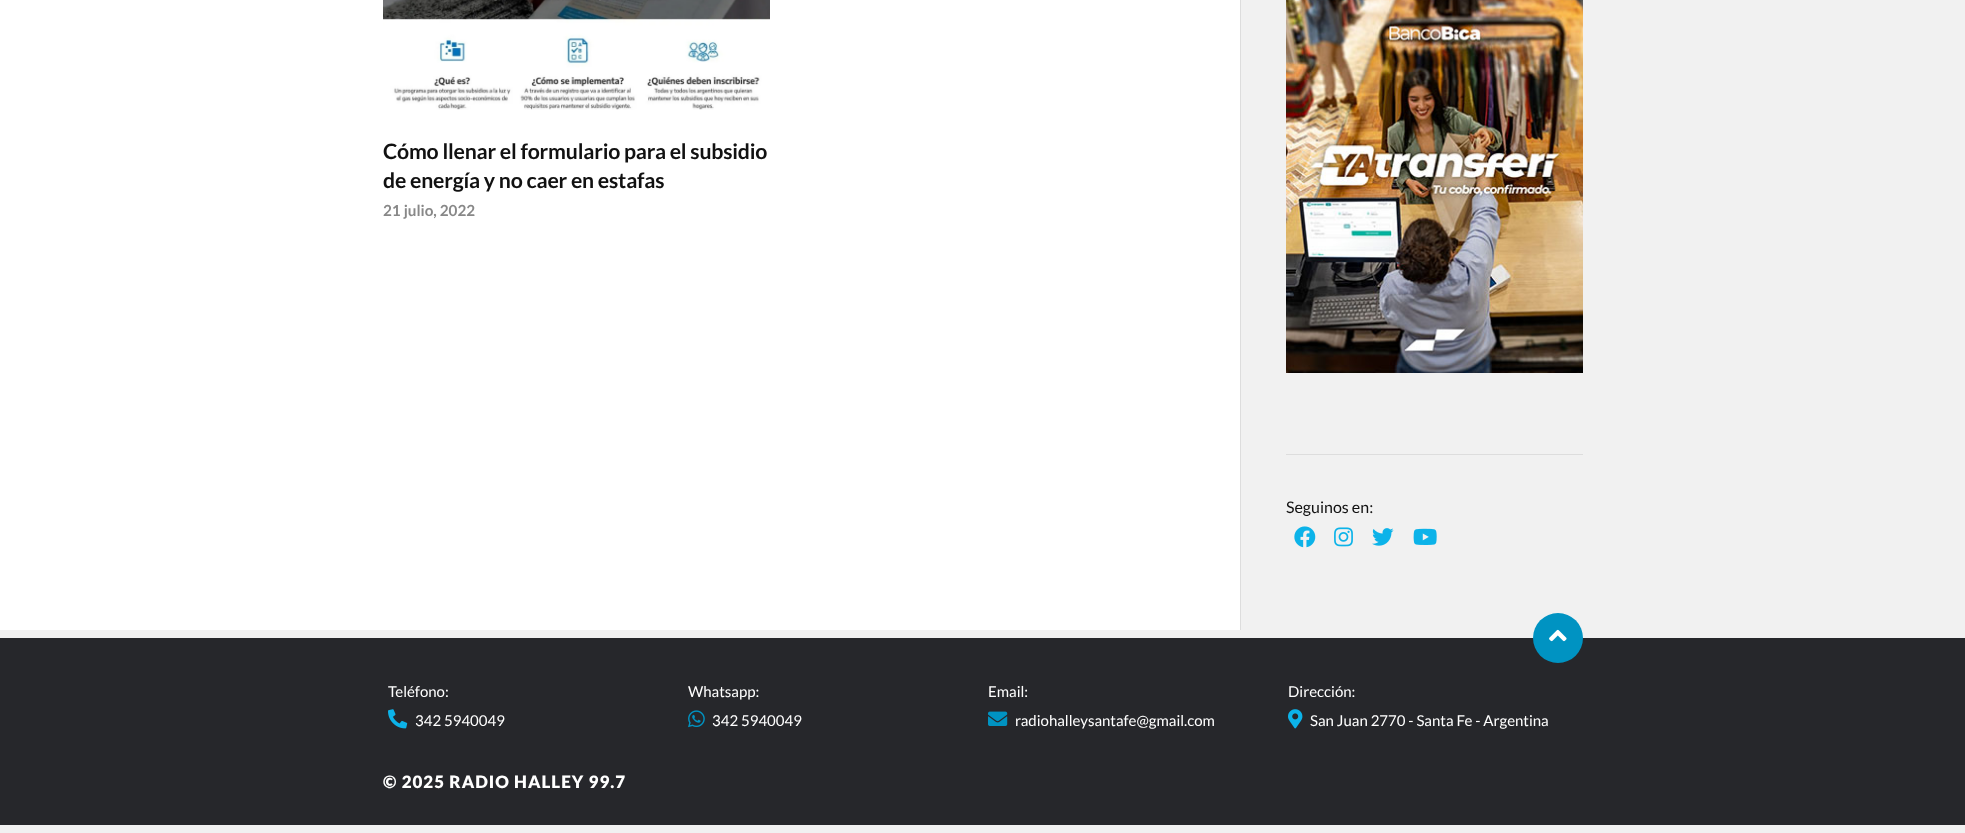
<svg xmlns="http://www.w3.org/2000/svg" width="1965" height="833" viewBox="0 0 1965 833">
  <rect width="100%" height="100%" fill="#f1f1f1"/>
  <rect x="0" y="0" width="1240" height="630" fill="#ffffff"/>
  <image x="383" y="0" width="387" height="110" href="img1.png"/>
  <text x="383" y="159" font-family="Lato" font-size="21.25" font-weight="bold" letter-spacing="-0.2" fill="#111111">Cómo llenar el formulario para el subsidio</text>
  <text x="383" y="188" font-family="Lato" font-size="21.25" font-weight="bold" letter-spacing="-0.2" fill="#111111">de energía y no caer en estafas</text>
  <text x="383" y="216" font-family="Lato" font-size="15.25" font-weight="bold" fill="#888888">21 julio, 2022</text>
  <rect x="1240" y="0" width="1" height="630" fill="#dddddd"/>
  <image x="1286" y="0" width="297" height="373" href="img2.png"/>
  <rect x="1286" y="454" width="297" height="1" fill="#dddddd"/>
  <text x="1286" y="513" font-family="Lato" font-size="16" fill="#111111">Seguinos en:</text>
  <image x="1294" y="526" width="22" height="22" href="img3.png"/>
  <image x="1334" y="527" width="19" height="20" href="img4.png"/>
  <image x="1372" y="528" width="22" height="18" href="img5.png"/>
  <image x="1413" y="528" width="24" height="17" href="img6.png"/>
  <rect x="0" y="638" width="1965" height="187" fill="#26272b"/>
  <circle cx="1558" cy="638" r="25" fill="#0093c2"/>
  <image x="1549" y="629" width="18" height="13" href="img7.png"/>
  <text x="388" y="697" font-family="Lato" font-size="15" fill="#ffffff">Teléfono:</text>
  <image x="388" y="709" width="20" height="20" href="img8.png"/>
  <text x="415" y="726" font-family="Lato" font-size="15" fill="#ffffff">342 5940049</text>
  <text x="688" y="697" font-family="Lato" font-size="15" fill="#ffffff">Whatsapp:</text>
  <image x="688" y="710" width="17" height="18" href="img9.png"/>
  <text x="712" y="726" font-family="Lato" font-size="15" fill="#ffffff">342 5940049</text>
  <text x="988" y="697" font-family="Lato" font-size="15" fill="#ffffff">Email:</text>
  <image x="988" y="711" width="20" height="15" href="img10.png"/>
  <text x="1015" y="726" font-family="Lato" font-size="15" fill="#ffffff">radiohalleysantafe@gmail.com</text>
  <text x="1288" y="697" font-family="Lato" font-size="15" fill="#ffffff">Dirección:</text>
  <image x="1288" y="709" width="15" height="20" href="img11.png"/>
  <text x="1310" y="726" font-family="Lato" font-size="15" fill="#ffffff">San Juan 2770 - Santa Fe - Argentina</text>
  <text x="383" y="788" font-family="Lato" font-size="17" font-weight="900" letter-spacing="1" fill="#ffffff">© 2025 RADIO HALLEY 99.7</text>
</svg>
